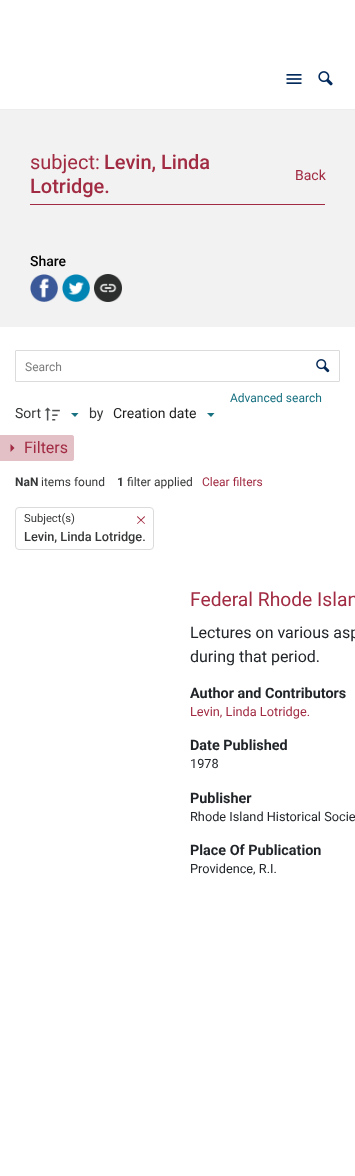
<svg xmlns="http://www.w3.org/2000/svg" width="355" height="1176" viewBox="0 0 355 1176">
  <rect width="100%" height="100%" fill="#ffffff"/>
  <rect x="0" y="109" width="355" height="1" fill="#ededed"/>
  <image x="286" y="74" width="16" height="10" href="img1.png"/>
  <image x="318" y="71" width="15" height="15" href="img2.png"/>
  <rect x="0" y="110" width="355" height="217" fill="#f2f2f2"/>
  <rect x="30" y="204" width="295" height="1" fill="#a12b42"/>
  <text x="30" y="169" font-family="Roboto" font-size="20" fill="#a12b42">subject:</text>
  <text x="104" y="169" font-family="Roboto" font-size="20" font-weight="500" fill="#a12b42">Levin, Linda</text>
  <text x="30" y="193" font-family="Roboto" font-size="20" font-weight="500" fill="#a12b42">Lotridge.</text>
  <text x="295" y="180" font-family="Roboto" font-size="14" fill="#a12b42">Back</text>
  <text x="30" y="266" font-family="Roboto" font-size="14" font-weight="500" fill="#000000">Share</text>
  <image x="30" y="274" width="28" height="28" href="img3.png"/>
  <image x="62" y="274" width="28" height="28" href="img4.png"/>
  <image x="94" y="274" width="28" height="28" href="img5.png"/>
  <rect x="15.5" y="350.5" width="324" height="31" rx="0.5" fill="none" stroke="#dbdbdb"/>
  <text x="25" y="371" font-family="Roboto" font-size="12" fill="#7c7d7e">Search</text>
  <image x="316" y="359" width="14" height="14" href="img6.png"/>
  <text x="230" y="402" font-family="Roboto" font-size="12" fill="#187181">Advanced search</text>
  <text x="15" y="418" font-family="Roboto" font-size="14" fill="#373839">Sort</text>
  <image x="44" y="407" width="16" height="14" href="img7.png"/>
  <path d="M71 413L75 417L78.5 413Z" fill="#187181"/>
  <text x="89" y="418" font-family="Roboto" font-size="14" fill="#373839">by</text>
  <text x="113" y="418" font-family="Roboto" font-size="14" fill="#1d1d1d">Creation date</text>
  <path d="M207 413L211 417L214.5 413Z" fill="#187181"/>
  <path d="M0 435H72C73 435 74 436 74 437V459C74 460 73 461 72 461H0Z" fill="#e3bfc6"/>
  <path d="M10.5 452L14.5 448L10.5 444Z" fill="#a12b42"/>
  <text x="24" y="453" font-family="Roboto" font-size="16" fill="#a12b42">Filters</text>
  <text x="15" y="486" font-family="Roboto" font-size="12" font-weight="bold" fill="#373839">NaN</text>
  <text x="41" y="486" font-family="Roboto" font-size="12" fill="#373839">items found</text>
  <text x="117" y="486" font-family="Roboto" font-size="12" font-weight="bold" fill="#373839">1</text>
  <text x="127" y="486" font-family="Roboto" font-size="12" fill="#373839">filter applied</text>
  <text x="202" y="486" font-family="Roboto" font-size="12" fill="#a12b42">Clear filters</text>
  <rect x="15.5" y="507.5" width="138" height="42" rx="3.5" fill="none" stroke="#dbdbdb"/>
  <text x="24" y="522" font-family="Roboto" font-size="11.25" fill="#373839">Subject(s)</text>
  <text x="24" y="541" font-family="Roboto" font-size="12.75" font-weight="500" fill="#373839">Levin, Linda Lotridge.</text>
  <path d="M137.5 516L145 523.5L144.5 524L137 517Z" fill="#a12b42"/>
  <path d="M144.5 516L145 517L137.5 524L137 523.5Z" fill="#a12b42"/>
  <text x="190" y="606" font-family="Roboto" font-size="19.25" fill="#a12b42">Federal Rhode Islan</text>
  <text x="190" y="638" font-family="Roboto" font-size="16" fill="#212529">Lectures on various asp</text>
  <text x="190" y="662" font-family="Roboto" font-size="16" fill="#212529">during that period.</text>
  <text x="190" y="698" font-family="Roboto" font-size="14.4" font-weight="bold" fill="#212529">Author and Contributors</text>
  <text x="190" y="716" font-family="Roboto" font-size="12.75" fill="#a12b42">Levin, Linda Lotridge.</text>
  <text x="190" y="750" font-family="Roboto" font-size="14.4" font-weight="bold" fill="#212529">Date Published</text>
  <text x="190" y="768" font-family="Roboto" font-size="12.75" fill="#212529">1978</text>
  <text x="190" y="803" font-family="Roboto" font-size="14.4" font-weight="bold" fill="#212529">Publisher</text>
  <text x="190" y="821" font-family="Roboto" font-size="12.75" fill="#212529">Rhode Island Historical Socie</text>
  <text x="190" y="855" font-family="Roboto" font-size="14.4" font-weight="bold" fill="#212529">Place Of Publication</text>
  <text x="190" y="873" font-family="Roboto" font-size="12.75" fill="#212529">Providence, R.I.</text>
</svg>
